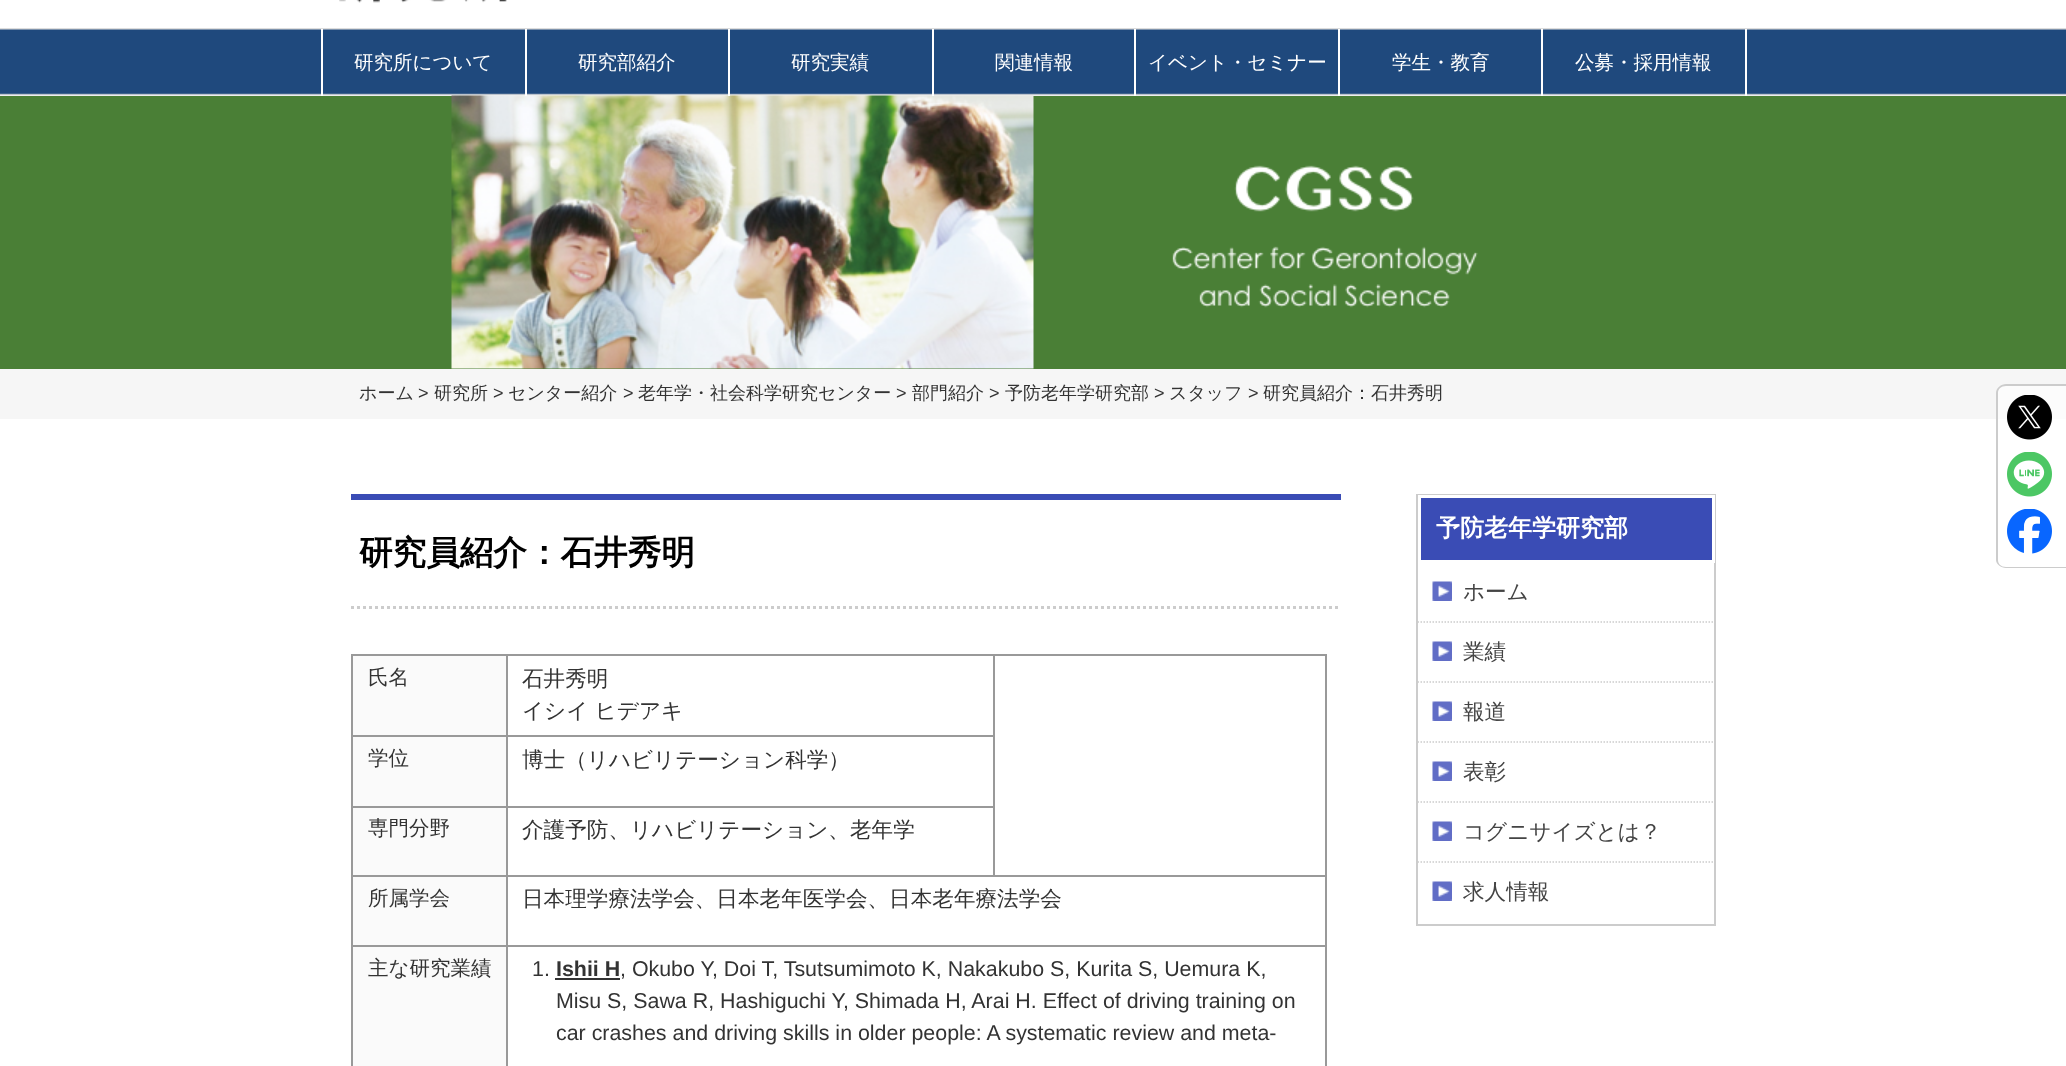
<svg xmlns="http://www.w3.org/2000/svg" width="2066" height="1066" viewBox="0 0 2066 1066">
  <rect width="100%" height="100%" fill="#ffffff"/>
  <image x="339" y="0" width="168" height="3" href="img1.png"/>
  <image x="0" y="28" width="2066" height="68" href="img2.png"/>
  <rect x="0" y="96" width="2066" height="273" fill="#4a7f36"/>
  <image x="451" y="95" width="1027" height="274" href="img3.png"/>
  <rect x="525" y="29" width="2" height="67" fill="#ffffff"/>
  <rect x="321" y="29" width="2" height="67" fill="#ffffff"/>
  <text x="354" y="69" font-family="WenQuanYi Zen Hei" font-size="19.5" font-weight="500" fill="#ffffff">研究所について</text>
  <rect x="728" y="29" width="2" height="67" fill="#ffffff"/>
  <text x="578" y="69" font-family="WenQuanYi Zen Hei" font-size="19.5" font-weight="500" fill="#ffffff">研究部紹介</text>
  <rect x="932" y="29" width="2" height="67" fill="#ffffff"/>
  <text x="791" y="69" font-family="WenQuanYi Zen Hei" font-size="19.5" font-weight="500" fill="#ffffff">研究実績</text>
  <rect x="1134" y="29" width="2" height="67" fill="#ffffff"/>
  <text x="995" y="69" font-family="WenQuanYi Zen Hei" font-size="19.5" font-weight="500" fill="#ffffff">関連情報</text>
  <rect x="1338" y="29" width="2" height="67" fill="#ffffff"/>
  <text x="1148" y="69" font-family="WenQuanYi Zen Hei" font-size="19.5" font-weight="500" fill="#ffffff">イベント・セミナー</text>
  <rect x="1541" y="29" width="2" height="67" fill="#ffffff"/>
  <text x="1392" y="69" font-family="WenQuanYi Zen Hei" font-size="19.5" font-weight="500" fill="#ffffff">学生・教育</text>
  <rect x="1745" y="29" width="2" height="67" fill="#ffffff"/>
  <text x="1575" y="69" font-family="WenQuanYi Zen Hei" font-size="19.5" font-weight="500" fill="#ffffff">公募・採用情報</text>
  <rect x="0" y="369" width="2066" height="50" fill="#f6f6f6"/>
  <text x="359" y="399" font-family="WenQuanYi Zen Hei" font-size="18" font-weight="500" fill="#333333">ホーム</text>
  <text x="418" y="399" font-family="Liberation Sans" font-size="18" fill="#333333">&gt;</text>
  <text x="434" y="399" font-family="WenQuanYi Zen Hei" font-size="18" font-weight="500" fill="#333333">研究所</text>
  <text x="493" y="399" font-family="Liberation Sans" font-size="18" fill="#333333">&gt;</text>
  <text x="508" y="399" font-family="WenQuanYi Zen Hei" font-size="18" font-weight="500" fill="#333333">センター紹介</text>
  <text x="623" y="399" font-family="Liberation Sans" font-size="18" fill="#333333">&gt;</text>
  <text x="638" y="399" font-family="WenQuanYi Zen Hei" font-size="18" font-weight="500" fill="#333333">老年学・社会科学研究センター</text>
  <text x="896" y="399" font-family="Liberation Sans" font-size="18" fill="#333333">&gt;</text>
  <text x="912" y="399" font-family="WenQuanYi Zen Hei" font-size="18" font-weight="500" fill="#333333">部門紹介</text>
  <text x="989" y="399" font-family="Liberation Sans" font-size="18" fill="#333333">&gt;</text>
  <text x="1005" y="399" font-family="WenQuanYi Zen Hei" font-size="18" font-weight="500" fill="#333333">予防老年学研究部</text>
  <text x="1154" y="399" font-family="Liberation Sans" font-size="18" fill="#333333">&gt;</text>
  <text x="1169" y="399" font-family="WenQuanYi Zen Hei" font-size="18" font-weight="500" fill="#333333">スタッフ</text>
  <text x="1248" y="399" font-family="Liberation Sans" font-size="18" fill="#333333">&gt;</text>
  <text x="1263" y="399" font-family="WenQuanYi Zen Hei" font-size="18" font-weight="500" fill="#333333">研究員紹介：石井秀明</text>
  <path d="M2006 384H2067V569H2006C2001 569 1997 565 1997 560V393C1997 388 2001 384 2006 384Z" fill="#ffffff" fill-opacity="0.67"/>
  <path d="M2006 384H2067V568H2006C2001 568 1996 564 1996 560V393C1996 388 2001 384 2006 384ZM2006 386H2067V567H2006C2001 567 1998 564 1998 560V393C1998 389 2001 386 2006 386Z" fill="#cccccc" fill-rule="evenodd"/>
  <image x="2007" y="395" width="45" height="45" href="img4.png"/>
  <image x="2007" y="452" width="45" height="45" href="img5.png"/>
  <image x="2007" y="509" width="45" height="45" href="img6.png"/>
  <rect x="351" y="494" width="990" height="6" fill="#3a4cb5"/>
  <path d="M351 607.5H1341" fill="none" stroke="#cccccc" stroke-width="3" stroke-dasharray="3 3"/>
  <text x="359" y="564" font-family="WenQuanYi Zen Hei" font-size="33.6" font-weight="bold" fill="#000000">研究員紹介：石井秀明</text>
  <rect x="351" y="654" width="975" height="2" fill="#999999"/>
  <rect x="1325" y="654" width="2" height="412" fill="#999999"/>
  <rect x="351" y="654" width="2" height="412" fill="#999999"/>
  <rect x="353" y="656" width="153" height="79" fill="#fafafa"/>
  <text x="368" y="684" font-family="WenQuanYi Zen Hei" font-size="20.5" font-weight="500" fill="#333333">氏名</text>
  <rect x="506" y="735" width="489" height="2" fill="#999999"/>
  <rect x="506" y="806" width="489" height="2" fill="#999999"/>
  <rect x="506" y="875" width="820" height="2" fill="#999999"/>
  <rect x="506" y="945" width="820" height="2" fill="#999999"/>
  <rect x="506" y="945" width="2" height="121" fill="#999999"/>
  <rect x="351" y="945" width="156" height="2" fill="#999999"/>
  <rect x="506" y="875" width="2" height="72" fill="#999999"/>
  <rect x="351" y="875" width="156" height="2" fill="#999999"/>
  <rect x="506" y="806" width="2" height="70" fill="#999999"/>
  <rect x="351" y="806" width="156" height="2" fill="#999999"/>
  <rect x="506" y="735" width="2" height="72" fill="#999999"/>
  <rect x="351" y="735" width="156" height="2" fill="#999999"/>
  <rect x="506" y="654" width="2" height="83" fill="#999999"/>
  <text x="522" y="686" font-family="WenQuanYi Zen Hei" font-size="21.6" font-weight="500" fill="#333333">石井秀明</text>
  <text x="522" y="718" font-family="WenQuanYi Zen Hei" font-size="21.6" font-weight="500" fill="#333333">イシイ ヒデアキ</text>
  <rect x="993" y="654" width="2" height="222" fill="#999999"/>
  <rect x="353" y="737" width="153" height="69" fill="#fafafa"/>
  <text x="368" y="765" font-family="WenQuanYi Zen Hei" font-size="20.5" font-weight="500" fill="#333333">学位</text>
  <text x="522" y="767" font-family="WenQuanYi Zen Hei" font-size="21.6" font-weight="500" fill="#333333">博士（リハビリテーション科学）</text>
  <rect x="353" y="808" width="153" height="67" fill="#fafafa"/>
  <text x="368" y="835" font-family="WenQuanYi Zen Hei" font-size="20.5" font-weight="500" fill="#333333">専門分野</text>
  <text x="522" y="837" font-family="WenQuanYi Zen Hei" font-size="21.6" font-weight="500" fill="#333333">介護予防、リハビリテーション、老年学</text>
  <rect x="353" y="877" width="153" height="68" fill="#fafafa"/>
  <text x="368" y="905" font-family="WenQuanYi Zen Hei" font-size="20.5" font-weight="500" fill="#333333">所属学会</text>
  <text x="522" y="906" font-family="WenQuanYi Zen Hei" font-size="21.6" font-weight="500" fill="#333333">日本理学療法学会、日本老年医学会、日本老年療法学会</text>
  <rect x="353" y="947" width="153" height="119" fill="#fafafa"/>
  <text x="368" y="975" font-family="WenQuanYi Zen Hei" font-size="20.5" font-weight="500" fill="#333333">主な研究業績</text>
  <text x="532" y="976" font-family="Liberation Sans" font-size="21.4" fill="#333333">1.</text>
  <text x="556" y="976" font-family="Liberation Sans" font-size="21.4" font-weight="bold" fill="#333333">Ishii H</text>
  <rect x="555" y="978" width="65" height="2" fill="#333333"/>
  <text x="620" y="976" font-family="Liberation Sans" font-size="21.4" fill="#333333">, Okubo Y, Doi T, Tsutsumimoto K, Nakakubo S, Kurita S, Uemura K,</text>
  <text x="556" y="1008" font-family="Liberation Sans" font-size="21.4" fill="#333333">Misu S, Sawa R, Hashiguchi Y, Shimada H, Arai H. Effect of driving training on</text>
  <text x="556" y="1040" font-family="Liberation Sans" font-size="21.4" fill="#333333">car crashes and driving skills in older people: A systematic review and meta-</text>
  <rect x="1417" y="495" width="298" height="430" fill="none" stroke="#cccccc" stroke-width="2"/>
  <rect x="1419.5" y="496.5" width="294" height="65" fill="#3a4cb5" stroke="#ffffff" stroke-width="3"/>
  <text x="1436" y="536" font-family="WenQuanYi Zen Hei" font-size="24" font-weight="bold" fill="#ffffff">予防老年学研究部</text>
  <path d="M1417.5 622H1714.5" fill="none" stroke="#cccccc" stroke-width="1.5" stroke-dasharray="1.5 1.5"/>
  <image x="1432" y="581" width="20" height="20" href="img7.png"/>
  <text x="1463" y="599" font-family="WenQuanYi Zen Hei" font-size="21.6" font-weight="500" fill="#444444">ホーム</text>
  <path d="M1417.5 682H1714.5" fill="none" stroke="#cccccc" stroke-width="1.5" stroke-dasharray="1.5 1.5"/>
  <image x="1432" y="641" width="20" height="20" href="img7.png"/>
  <text x="1463" y="659" font-family="WenQuanYi Zen Hei" font-size="21.6" font-weight="500" fill="#444444">業績</text>
  <path d="M1417.5 742H1714.5" fill="none" stroke="#cccccc" stroke-width="1.5" stroke-dasharray="1.5 1.5"/>
  <image x="1432" y="701" width="20" height="20" href="img7.png"/>
  <text x="1463" y="719" font-family="WenQuanYi Zen Hei" font-size="21.6" font-weight="500" fill="#444444">報道</text>
  <path d="M1417.5 802H1714.5" fill="none" stroke="#cccccc" stroke-width="1.5" stroke-dasharray="1.5 1.5"/>
  <image x="1432" y="761" width="20" height="20" href="img7.png"/>
  <text x="1463" y="779" font-family="WenQuanYi Zen Hei" font-size="21.6" font-weight="500" fill="#444444">表彰</text>
  <path d="M1417.5 862H1714.5" fill="none" stroke="#cccccc" stroke-width="1.5" stroke-dasharray="1.5 1.5"/>
  <image x="1432" y="821" width="20" height="20" href="img7.png"/>
  <text x="1463" y="839" font-family="WenQuanYi Zen Hei" font-size="21.6" font-weight="500" fill="#444444">コグニサイズとは？</text>
  <image x="1432" y="881" width="20" height="20" href="img7.png"/>
  <text x="1463" y="899" font-family="WenQuanYi Zen Hei" font-size="21.6" font-weight="500" fill="#444444">求人情報</text>
</svg>
